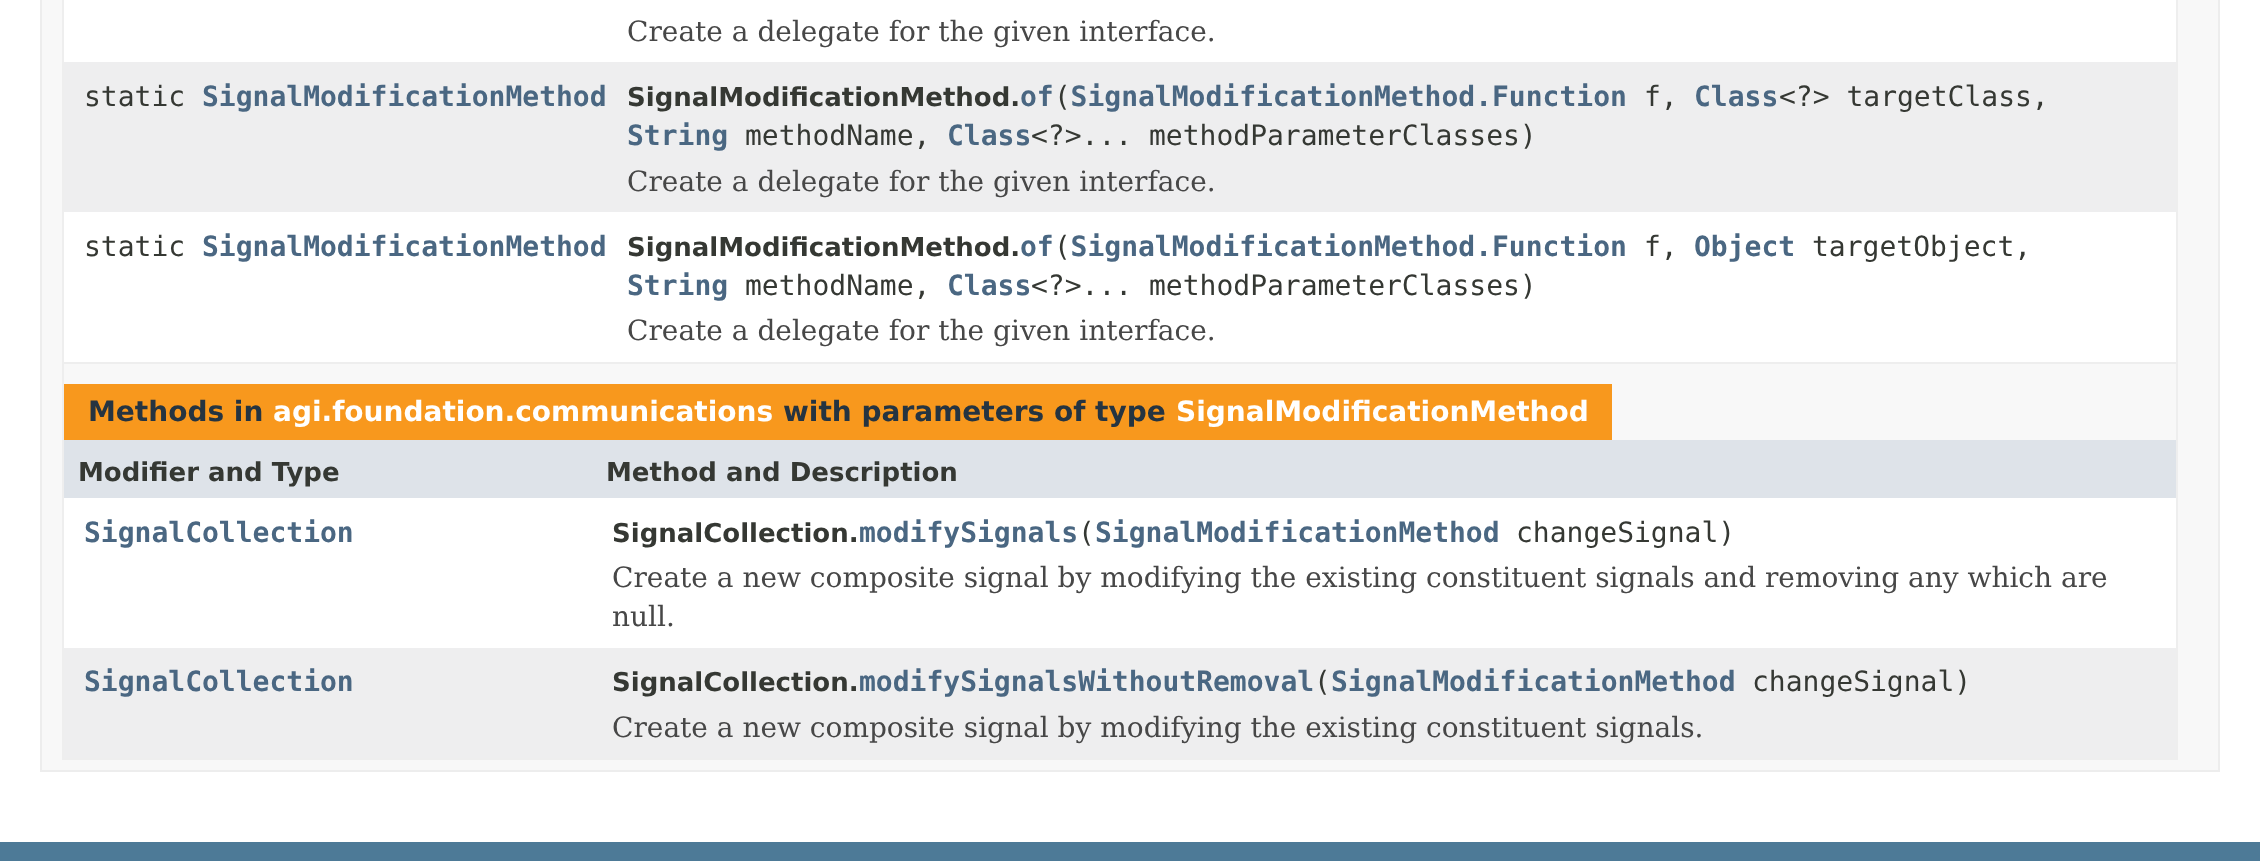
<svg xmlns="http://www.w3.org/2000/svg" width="2260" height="861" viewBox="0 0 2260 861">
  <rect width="100%" height="100%" fill="#ffffff"/>
  <rect x="41" y="-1" width="2178" height="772" fill="#f8f8f8" stroke="#ededed" stroke-width="2"/>
  <rect x="2176" y="0" width="2" height="760" fill="#eeeeee"/>
  <rect x="62" y="362" width="2116" height="2" fill="#eeeeee"/>
  <rect x="62" y="0" width="2" height="364" fill="#eeeeee"/>
  <rect x="64" y="0" width="2112" height="62" fill="#ffffff"/>
  <text x="627" y="41" font-family="DejaVu Serif" font-size="28" fill="#474747">Create a delegate for the given interface.</text>
  <rect x="64" y="62" width="2112" height="150" fill="#eeeeef"/>
  <text x="84" y="106" font-family="DejaVu Sans Mono" font-size="28" fill="#353833">static</text>
  <text x="202" y="106" font-family="DejaVu Sans Mono" font-size="28" font-weight="bold" fill="#4a6782">SignalModificationMethod</text>
  <text x="1020" y="106" font-family="DejaVu Sans Mono" font-size="28" font-weight="bold" fill="#4a6782">of SignalModificationMethod.Function</text>
  <text x="627" y="106" font-family="DejaVu Sans" font-size="26" font-weight="bold" fill="#353833">SignalModificationMethod.</text>
  <text x="1054" y="106" font-family="DejaVu Sans Mono" font-size="28" fill="#353833">(</text>
  <text x="1644" y="106" font-family="DejaVu Sans Mono" font-size="28" fill="#353833">f,</text>
  <text x="1694" y="106" font-family="DejaVu Sans Mono" font-size="28" font-weight="bold" fill="#4a6782">Class</text>
  <text x="1779" y="106" font-family="DejaVu Sans Mono" font-size="28" fill="#353833">&lt;?&gt; targetClass,</text>
  <text x="627" y="145" font-family="DejaVu Sans Mono" font-size="28" font-weight="bold" fill="#4a6782">String</text>
  <text x="745" y="145" font-family="DejaVu Sans Mono" font-size="28" fill="#353833">methodName,</text>
  <text x="947" y="145" font-family="DejaVu Sans Mono" font-size="28" font-weight="bold" fill="#4a6782">Class</text>
  <text x="1031" y="145" font-family="DejaVu Sans Mono" font-size="28" fill="#353833">&lt;?&gt;... methodParameterClasses)</text>
  <text x="627" y="191" font-family="DejaVu Serif" font-size="28" fill="#474747">Create a delegate for the given interface.</text>
  <rect x="64" y="212" width="2112" height="150" fill="#ffffff"/>
  <text x="84" y="256" font-family="DejaVu Sans Mono" font-size="28" fill="#353833">static</text>
  <text x="202" y="256" font-family="DejaVu Sans Mono" font-size="28" font-weight="bold" fill="#4a6782">SignalModificationMethod</text>
  <text x="1020" y="256" font-family="DejaVu Sans Mono" font-size="28" font-weight="bold" fill="#4a6782">of SignalModificationMethod.Function</text>
  <text x="1694" y="256" font-family="DejaVu Sans Mono" font-size="28" font-weight="bold" fill="#4a6782">Object</text>
  <text x="627" y="256" font-family="DejaVu Sans" font-size="26" font-weight="bold" fill="#353833">SignalModificationMethod.</text>
  <text x="1054" y="256" font-family="DejaVu Sans Mono" font-size="28" fill="#353833">(</text>
  <text x="1644" y="256" font-family="DejaVu Sans Mono" font-size="28" fill="#353833">f,</text>
  <text x="1812" y="256" font-family="DejaVu Sans Mono" font-size="28" fill="#353833">targetObject,</text>
  <text x="627" y="295" font-family="DejaVu Sans Mono" font-size="28" font-weight="bold" fill="#4a6782">String</text>
  <text x="745" y="295" font-family="DejaVu Sans Mono" font-size="28" fill="#353833">methodName,</text>
  <text x="947" y="295" font-family="DejaVu Sans Mono" font-size="28" font-weight="bold" fill="#4a6782">Class</text>
  <text x="1031" y="295" font-family="DejaVu Sans Mono" font-size="28" fill="#353833">&lt;?&gt;... methodParameterClasses)</text>
  <text x="627" y="340" font-family="DejaVu Serif" font-size="28" fill="#474747">Create a delegate for the given interface.</text>
  <rect x="62" y="758" width="2116" height="2" fill="#eeeeee"/>
  <rect x="62" y="364" width="2" height="396" fill="#eeeeee"/>
  <rect x="64" y="384" width="1548" height="56" fill="#f8981d"/>
  <text x="88" y="421" font-family="DejaVu Sans" font-size="28" font-weight="bold" fill="#253441">Methods in</text>
  <text x="273" y="421" font-family="DejaVu Sans" font-size="28" font-weight="bold" fill="#ffffff">agi.foundation.communications</text>
  <text x="783" y="421" font-family="DejaVu Sans" font-size="28" font-weight="bold" fill="#253441">with parameters of type</text>
  <text x="1176" y="421" font-family="DejaVu Sans" font-size="28" font-weight="bold" fill="#ffffff">SignalModificationMethod</text>
  <rect x="64" y="440" width="2112" height="58" fill="#dee3e9"/>
  <text x="78" y="481" font-family="DejaVu Sans" font-size="26" font-weight="bold" fill="#353833">Modifier and Type</text>
  <text x="606" y="481" font-family="DejaVu Sans" font-size="26" font-weight="bold" fill="#353833">Method and Description</text>
  <rect x="64" y="498" width="2112" height="150" fill="#ffffff"/>
  <text x="84" y="542" font-family="DejaVu Sans Mono" font-size="28" font-weight="bold" fill="#4a6782">SignalCollection</text>
  <text x="859" y="542" font-family="DejaVu Sans Mono" font-size="28" font-weight="bold" fill="#4a6782">modifySignals SignalModificationMethod</text>
  <text x="612" y="542" font-family="DejaVu Sans" font-size="26" font-weight="bold" fill="#353833">SignalCollection.</text>
  <text x="1078" y="542" font-family="DejaVu Sans Mono" font-size="28" fill="#353833">(</text>
  <text x="1516" y="542" font-family="DejaVu Sans Mono" font-size="28" fill="#353833">changeSignal)</text>
  <text x="612" y="587" font-family="DejaVu Serif" font-size="28" fill="#474747">Create a new composite signal by modifying the existing constituent signals and removing any which are</text>
  <text x="612" y="626" font-family="DejaVu Serif" font-size="28" fill="#474747">null.</text>
  <rect x="64" y="648" width="2112" height="110" fill="#eeeeef"/>
  <text x="84" y="691" font-family="DejaVu Sans Mono" font-size="28" font-weight="bold" fill="#4a6782">SignalCollection</text>
  <text x="859" y="691" font-family="DejaVu Sans Mono" font-size="28" font-weight="bold" fill="#4a6782">modifySignalsWithoutRemoval SignalModificationMethod</text>
  <text x="612" y="691" font-family="DejaVu Sans" font-size="26" font-weight="bold" fill="#353833">SignalCollection.</text>
  <text x="1314" y="691" font-family="DejaVu Sans Mono" font-size="28" fill="#353833">(</text>
  <text x="1752" y="691" font-family="DejaVu Sans Mono" font-size="28" fill="#353833">changeSignal)</text>
  <text x="612" y="737" font-family="DejaVu Serif" font-size="28" fill="#474747">Create a new composite signal by modifying the existing constituent signals.</text>
  <rect x="0" y="842" width="2260" height="19" fill="#4d7a97"/>
</svg>
